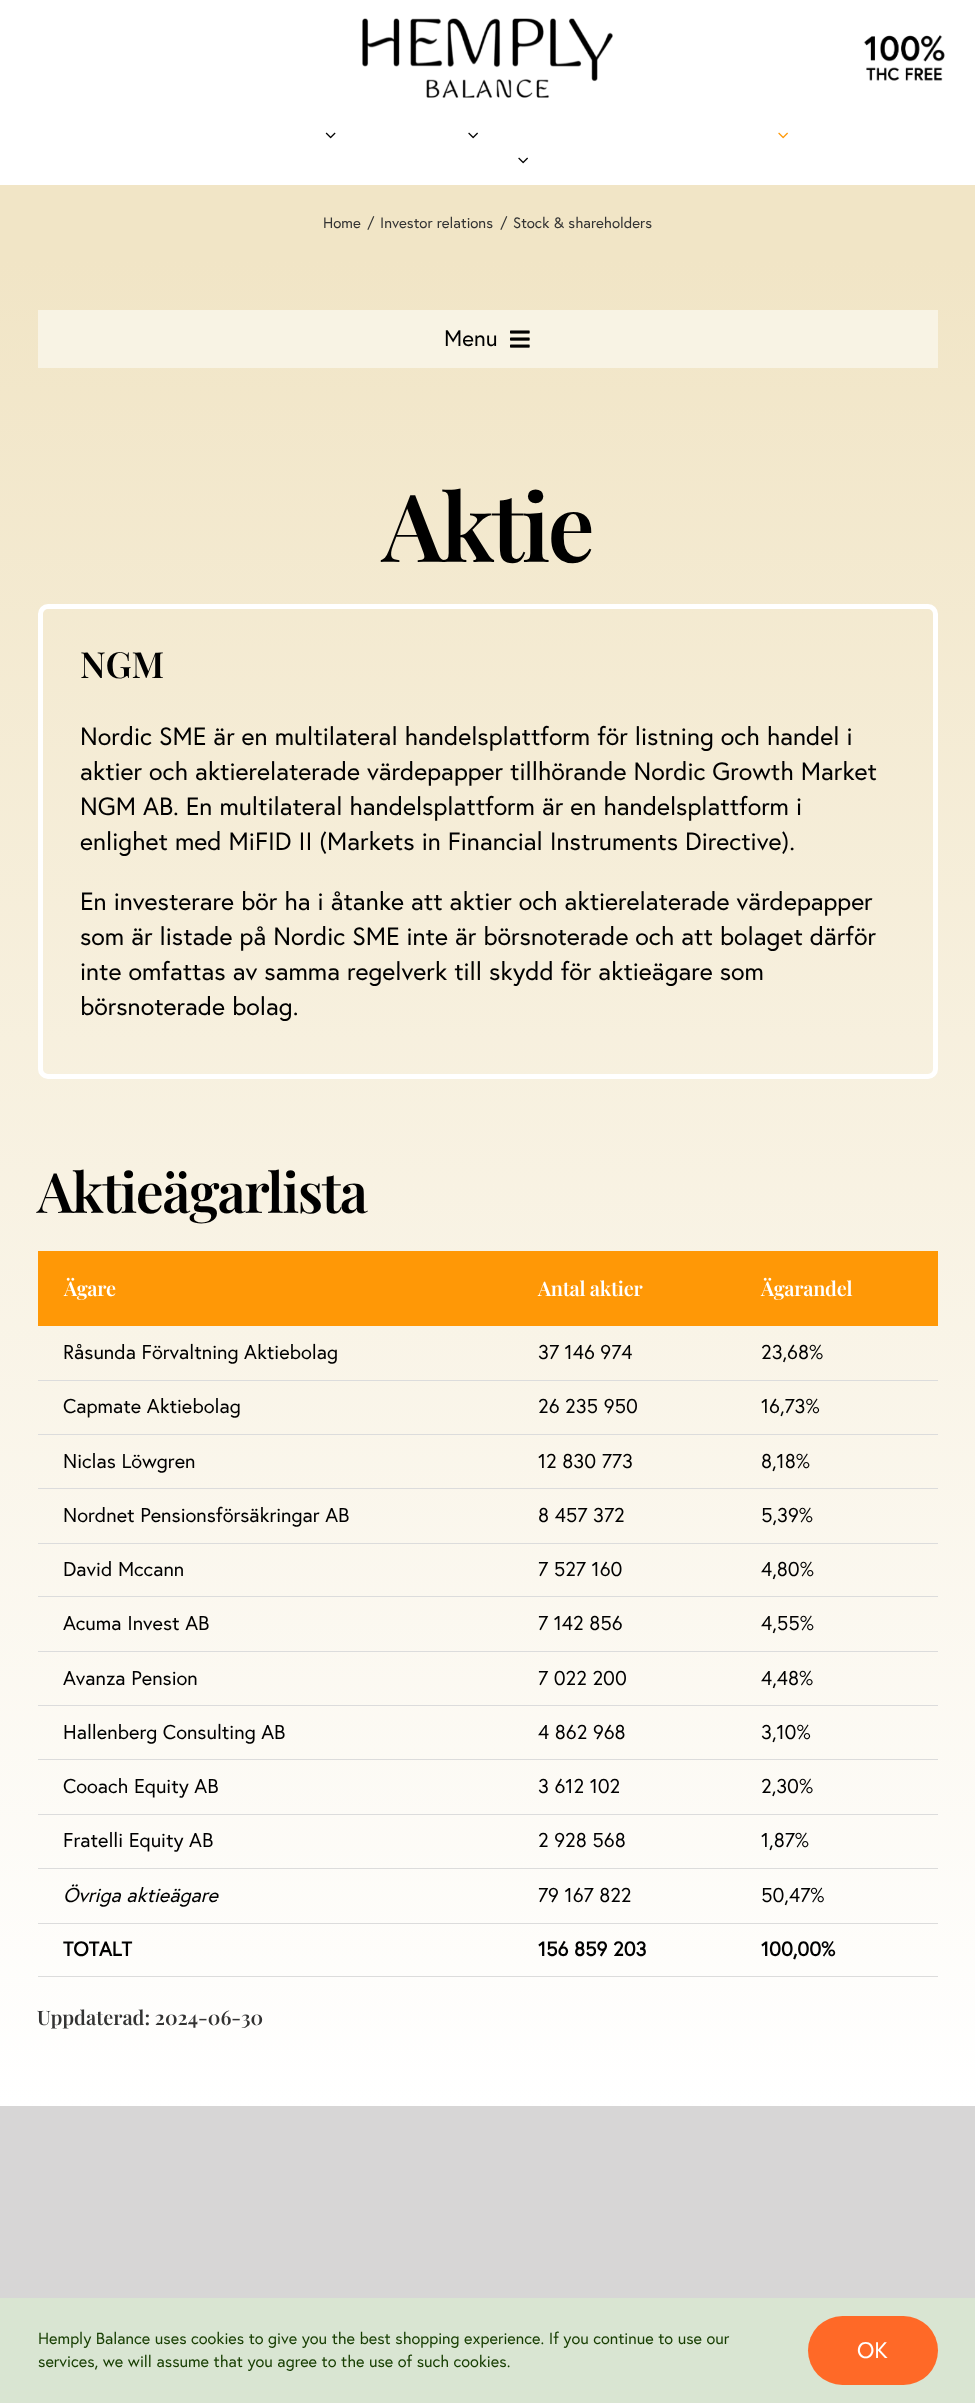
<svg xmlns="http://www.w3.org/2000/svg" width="975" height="2403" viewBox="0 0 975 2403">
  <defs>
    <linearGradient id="g1" gradientUnits="userSpaceOnUse" x1="487" y1="260" x2="488" y2="2106"><stop offset="0" stop-color="#f1e5c6"/><stop offset="1" stop-color="#ffffff"/></linearGradient>
  </defs>
  <rect width="100%" height="100%" fill="#d7d6d6"/>
  <rect x="0" y="0" width="975" height="185" fill="#ffffff"/>
  <image x="362" y="18" width="251" height="80" href="img1.png"/>
  <image x="863" y="35" width="82" height="46" href="img2.png"/>
  <image x="325" y="132" width="11" height="7" href="img3.png"/>
  <image x="468" y="132" width="10" height="7" href="img4.png"/>
  <image x="778" y="132" width="10" height="7" href="img5.png"/>
  <image x="518" y="157" width="10" height="7" href="img4.png"/>
  <rect x="0" y="185" width="975" height="75" fill="#f1e5c6"/>
  <text x="323" y="228" font-family="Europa" font-size="15" fill="#333333">Home</text>
  <text x="367" y="228" font-family="Europa" font-size="15" fill="#333333">/</text>
  <text x="380" y="228" font-family="Europa" font-size="15" fill="#333333">Investor relations</text>
  <text x="500" y="228" font-family="Europa" font-size="15" fill="#333333">/</text>
  <text x="513" y="228" font-family="Europa" font-size="15" fill="#333333">Stock &amp; shareholders</text>
  <rect x="0" y="260" width="975" height="1846" fill="url(#g1)"/>
  <rect x="38" y="310" width="900" height="58" fill="#f8f3e4"/>
  <text x="444" y="346" font-family="Europa" font-size="22.5" fill="#000000">Menu</text>
  <image x="510" y="330" width="20" height="18" href="img6.png"/>
  <text x="382" y="562" font-family="Playfair Display" font-size="94" font-weight="600" letter-spacing="-3" fill="#000000">Aktie</text>
  <rect x="40.5" y="606.5" width="895" height="470" rx="7.5" fill="none" stroke="#ffffff" stroke-width="5"/>
  <text x="80" y="678" font-family="Playfair Display" font-size="36" font-weight="600" fill="#000000">NGM</text>
  <text x="80" y="745" font-family="Europa" font-size="25" fill="#000000">Nordic SME är en multilateral handelsplattform för listning och handel i</text>
  <text x="80" y="780" font-family="Europa" font-size="25" fill="#000000">aktier och aktierelaterade värdepapper tillhörande Nordic Growth Market</text>
  <text x="80" y="815" font-family="Europa" font-size="25" fill="#000000">NGM AB. En multilateral handelsplattform är en handelsplattform i</text>
  <text x="80" y="850" font-family="Europa" font-size="25" fill="#000000">enlighet med MiFID II (Markets in Financial Instruments Directive).</text>
  <text x="80" y="910" font-family="Europa" font-size="25" fill="#000000">En investerare bör ha i åtanke att aktier och aktierelaterade värdepapper</text>
  <text x="80" y="945" font-family="Europa" font-size="25" fill="#000000">som är listade på Nordic SME inte är börsnoterade och att bolaget därför</text>
  <text x="80" y="980" font-family="Europa" font-size="25" fill="#000000">inte omfattas av samma regelverk till skydd för aktieägare som</text>
  <text x="80" y="1015" font-family="Europa" font-size="25" fill="#000000">börsnoterade bolag.</text>
  <text x="37" y="1213" font-family="Playfair Display" font-size="55.5" font-weight="600" letter-spacing="-1.5" fill="#000000">Aktieägarlista</text>
  <rect x="38" y="1251" width="900" height="75" fill="#ff9806"/>
  <text x="64" y="1296" font-family="Playfair Display" font-size="20" font-weight="600" letter-spacing="-0.25" fill="#ffffff">Ägare</text>
  <text x="538" y="1296" font-family="Playfair Display" font-size="20" font-weight="600" letter-spacing="-0.25" fill="#ffffff">Antal aktier</text>
  <text x="761" y="1296" font-family="Playfair Display" font-size="20" font-weight="600" letter-spacing="-0.25" fill="#ffffff">Ägarandel</text>
  <text x="63" y="1359" font-family="Europa" font-size="20" fill="#000000">Råsunda Förvaltning Aktiebolag</text>
  <text x="538" y="1359" font-family="Europa" font-size="20" fill="#000000">37 146 974</text>
  <rect x="38" y="1380" width="900" height="1" fill="#dcdcdc"/>
  <text x="761" y="1359" font-family="Europa" font-size="20" fill="#000000">23,68%</text>
  <text x="63" y="1413" font-family="Europa" font-size="20" fill="#000000">Capmate Aktiebolag</text>
  <text x="538" y="1413" font-family="Europa" font-size="20" fill="#000000">26 235 950</text>
  <rect x="38" y="1434" width="900" height="1" fill="#dcdcdc"/>
  <text x="761" y="1413" font-family="Europa" font-size="20" fill="#000000">16,73%</text>
  <text x="63" y="1468" font-family="Europa" font-size="20" fill="#000000">Niclas Löwgren</text>
  <text x="538" y="1468" font-family="Europa" font-size="20" fill="#000000">12 830 773</text>
  <rect x="38" y="1488" width="900" height="1" fill="#dcdcdc"/>
  <text x="761" y="1468" font-family="Europa" font-size="20" fill="#000000">8,18%</text>
  <text x="63" y="1522" font-family="Europa" font-size="20" fill="#000000">Nordnet Pensionsförsäkringar AB</text>
  <text x="538" y="1522" font-family="Europa" font-size="20" fill="#000000">8 457 372</text>
  <rect x="38" y="1543" width="900" height="1" fill="#dcdcdc"/>
  <text x="761" y="1522" font-family="Europa" font-size="20" fill="#000000">5,39%</text>
  <text x="63" y="1576" font-family="Europa" font-size="20" fill="#000000">David Mccann</text>
  <text x="538" y="1576" font-family="Europa" font-size="20" fill="#000000">7 527 160</text>
  <rect x="38" y="1596" width="900" height="1" fill="#dcdcdc"/>
  <text x="761" y="1576" font-family="Europa" font-size="20" fill="#000000">4,80%</text>
  <text x="63" y="1630" font-family="Europa" font-size="20" fill="#000000">Acuma Invest AB</text>
  <text x="538" y="1630" font-family="Europa" font-size="20" fill="#000000">7 142 856</text>
  <rect x="38" y="1651" width="900" height="1" fill="#dcdcdc"/>
  <text x="761" y="1630" font-family="Europa" font-size="20" fill="#000000">4,55%</text>
  <text x="63" y="1685" font-family="Europa" font-size="20" fill="#000000">Avanza Pension</text>
  <text x="538" y="1685" font-family="Europa" font-size="20" fill="#000000">7 022 200</text>
  <rect x="38" y="1705" width="900" height="1" fill="#dcdcdc"/>
  <text x="761" y="1685" font-family="Europa" font-size="20" fill="#000000">4,48%</text>
  <text x="63" y="1739" font-family="Europa" font-size="20" fill="#000000">Hallenberg Consulting AB</text>
  <text x="538" y="1739" font-family="Europa" font-size="20" fill="#000000">4 862 968</text>
  <rect x="38" y="1759" width="900" height="1" fill="#dcdcdc"/>
  <text x="761" y="1739" font-family="Europa" font-size="20" fill="#000000">3,10%</text>
  <text x="63" y="1793" font-family="Europa" font-size="20" fill="#000000">Cooach Equity AB</text>
  <text x="538" y="1793" font-family="Europa" font-size="20" fill="#000000">3 612 102</text>
  <rect x="38" y="1814" width="900" height="1" fill="#dcdcdc"/>
  <text x="761" y="1793" font-family="Europa" font-size="20" fill="#000000">2,30%</text>
  <text x="63" y="1847" font-family="Europa" font-size="20" fill="#000000">Fratelli Equity AB</text>
  <text x="538" y="1847" font-family="Europa" font-size="20" fill="#000000">2 928 568</text>
  <rect x="38" y="1868" width="900" height="1" fill="#dcdcdc"/>
  <text x="761" y="1847" font-family="Europa" font-size="20" fill="#000000">1,87%</text>
  <text x="63" y="1902" font-family="Europa" font-size="20" font-style="italic" fill="#000000">Övriga aktieägare</text>
  <text x="538" y="1902" font-family="Europa" font-size="20" fill="#000000">79 167 822</text>
  <rect x="38" y="1923" width="900" height="1" fill="#dcdcdc"/>
  <text x="761" y="1902" font-family="Europa" font-size="20" fill="#000000">50,47%</text>
  <text x="63" y="1956" font-family="Europa" font-size="20" font-weight="bold" fill="#000000">TOTALT</text>
  <text x="538" y="1956" font-family="Europa" font-size="20" font-weight="bold" fill="#000000">156 859 203</text>
  <rect x="38" y="1976" width="900" height="1" fill="#dcdcdc"/>
  <text x="761" y="1956" font-family="Europa" font-size="20" font-weight="bold" fill="#000000">100,00%</text>
  <text x="37" y="2025" font-family="Playfair Display" font-size="20" font-weight="600" fill="#333333">Uppdaterad: 2024-06-30</text>
  <rect x="0" y="2298" width="975" height="105" fill="#d9e5d2"/>
  <text x="38" y="2344" font-family="Europa" font-size="16.25" fill="#163d00">Hemply Balance uses cookies to give you the best shopping experience. If you continue to use our</text>
  <text x="38" y="2367" font-family="Europa" font-size="16.25" fill="#163d00">services, we will assume that you agree to the use of such cookies.</text>
  <rect x="808" y="2316" width="130" height="69" rx="34.5" fill="#ff6927"/>
  <text x="857" y="2358" font-family="Europa" font-size="22.5" fill="#ffffff">OK</text>
</svg>
